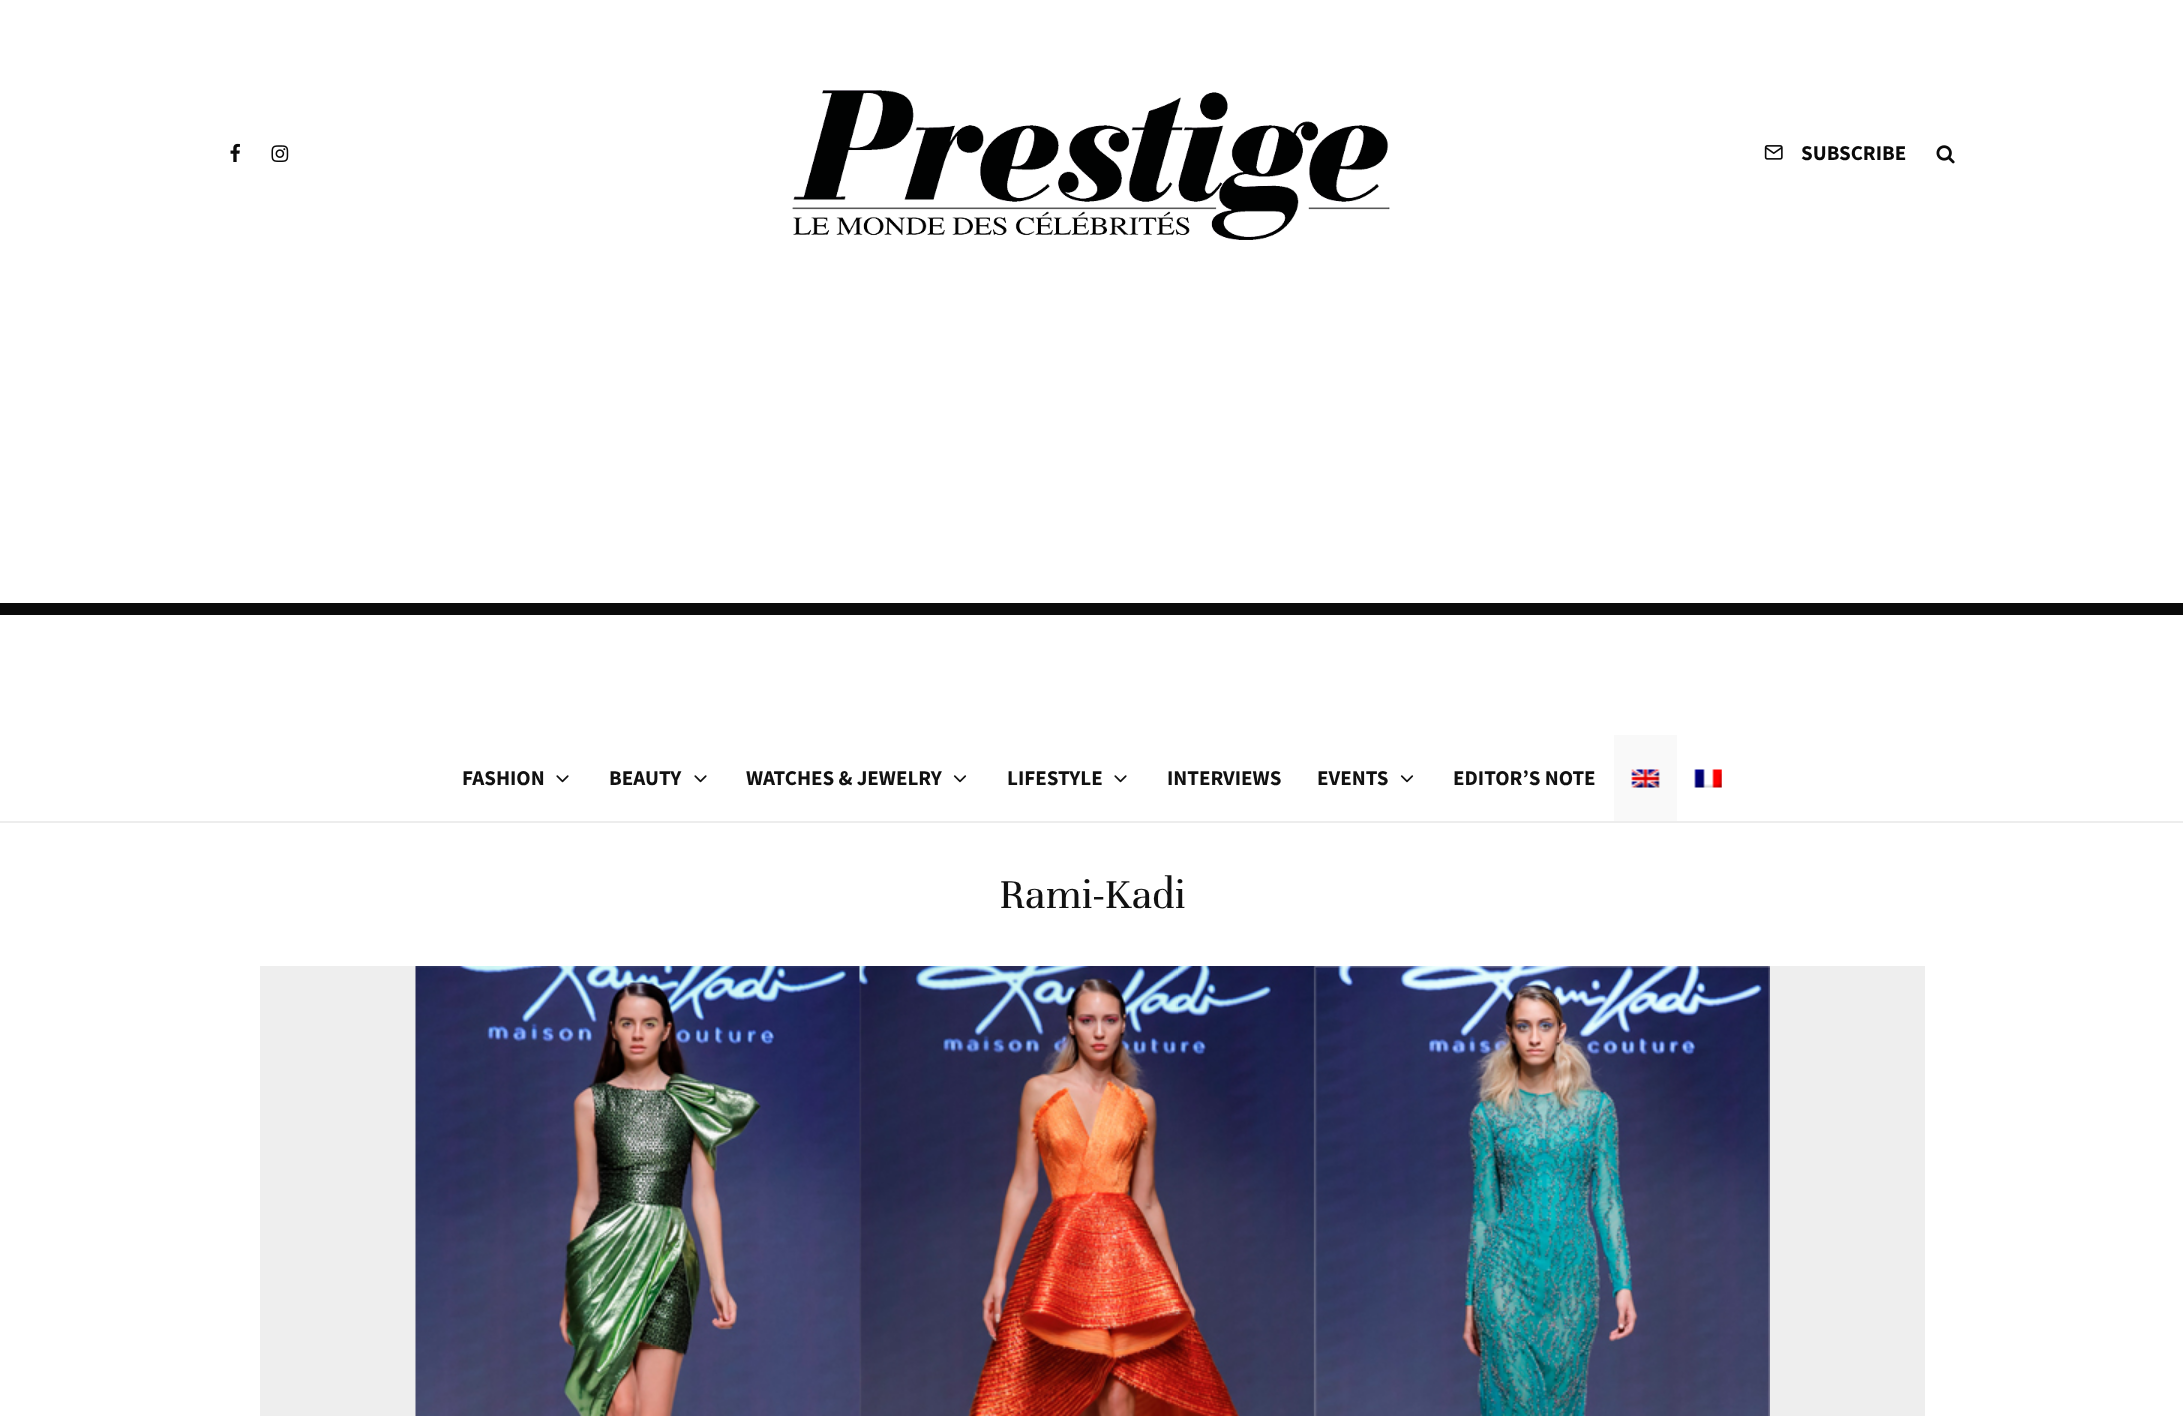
<svg xmlns="http://www.w3.org/2000/svg" width="2183" height="1416" viewBox="0 0 2183 1416">
  <rect width="100%" height="100%" fill="#ffffff"/>
  <image x="230" y="143" width="10" height="19" href="img1.png"/>
  <image x="271" y="145" width="18" height="17" href="img2.png"/>
  <image x="792" y="90" width="598" height="150" href="img3.png"/>
  <image x="1764" y="145" width="19" height="15" href="img4.png"/>
  <text x="1801" y="160" font-family="Source Sans Pro" font-size="21" font-weight="bold" fill="#0a0a0a">SUBSCRIBE</text>
  <image x="1936" y="145" width="19" height="19" href="img5.png"/>
  <rect x="0" y="603" width="2183" height="12" fill="#0a0a0a"/>
  <rect x="0" y="821" width="2183" height="2" fill="#ededed"/>
  <text x="462" y="785" font-family="Source Sans Pro" font-size="21" font-weight="bold" fill="#111111">FASHION</text>
  <image x="556" y="775" width="13" height="8" href="img6.png"/>
  <text x="609" y="785" font-family="Source Sans Pro" font-size="21" font-weight="bold" fill="#111111">BEAUTY</text>
  <image x="694" y="775" width="13" height="8" href="img6.png"/>
  <text x="746" y="785" font-family="Source Sans Pro" font-size="21" font-weight="bold" fill="#111111">WATCHES &amp; JEWELRY</text>
  <image x="953" y="775" width="14" height="8" href="img7.png"/>
  <text x="1007" y="785" font-family="Source Sans Pro" font-size="21" font-weight="bold" fill="#111111">LIFESTYLE</text>
  <image x="1114" y="775" width="13" height="8" href="img6.png"/>
  <text x="1167" y="785" font-family="Source Sans Pro" font-size="21" font-weight="bold" fill="#111111">INTERVIEWS</text>
  <text x="1317" y="785" font-family="Source Sans Pro" font-size="21" font-weight="bold" fill="#111111">EVENTS</text>
  <image x="1400" y="775" width="14" height="8" href="img7.png"/>
  <text x="1453" y="785" font-family="Source Sans Pro" font-size="21" font-weight="bold" fill="#111111">EDITOR’S NOTE</text>
  <rect x="1614" y="735" width="63" height="86" fill="#f9f9f9"/>
  <image x="1631" y="769" width="29" height="19" href="img8.png"/>
  <image x="1694" y="769" width="28" height="19" href="img9.png"/>
  <text x="999" y="908" font-family="Unna" font-size="45" fill="#111111">Rami-Kadi</text>
  <rect x="260" y="966" width="1665" height="450" fill="#eeeeee"/>
  <image x="415" y="966" width="1355" height="450" href="img10.png"/>
</svg>
